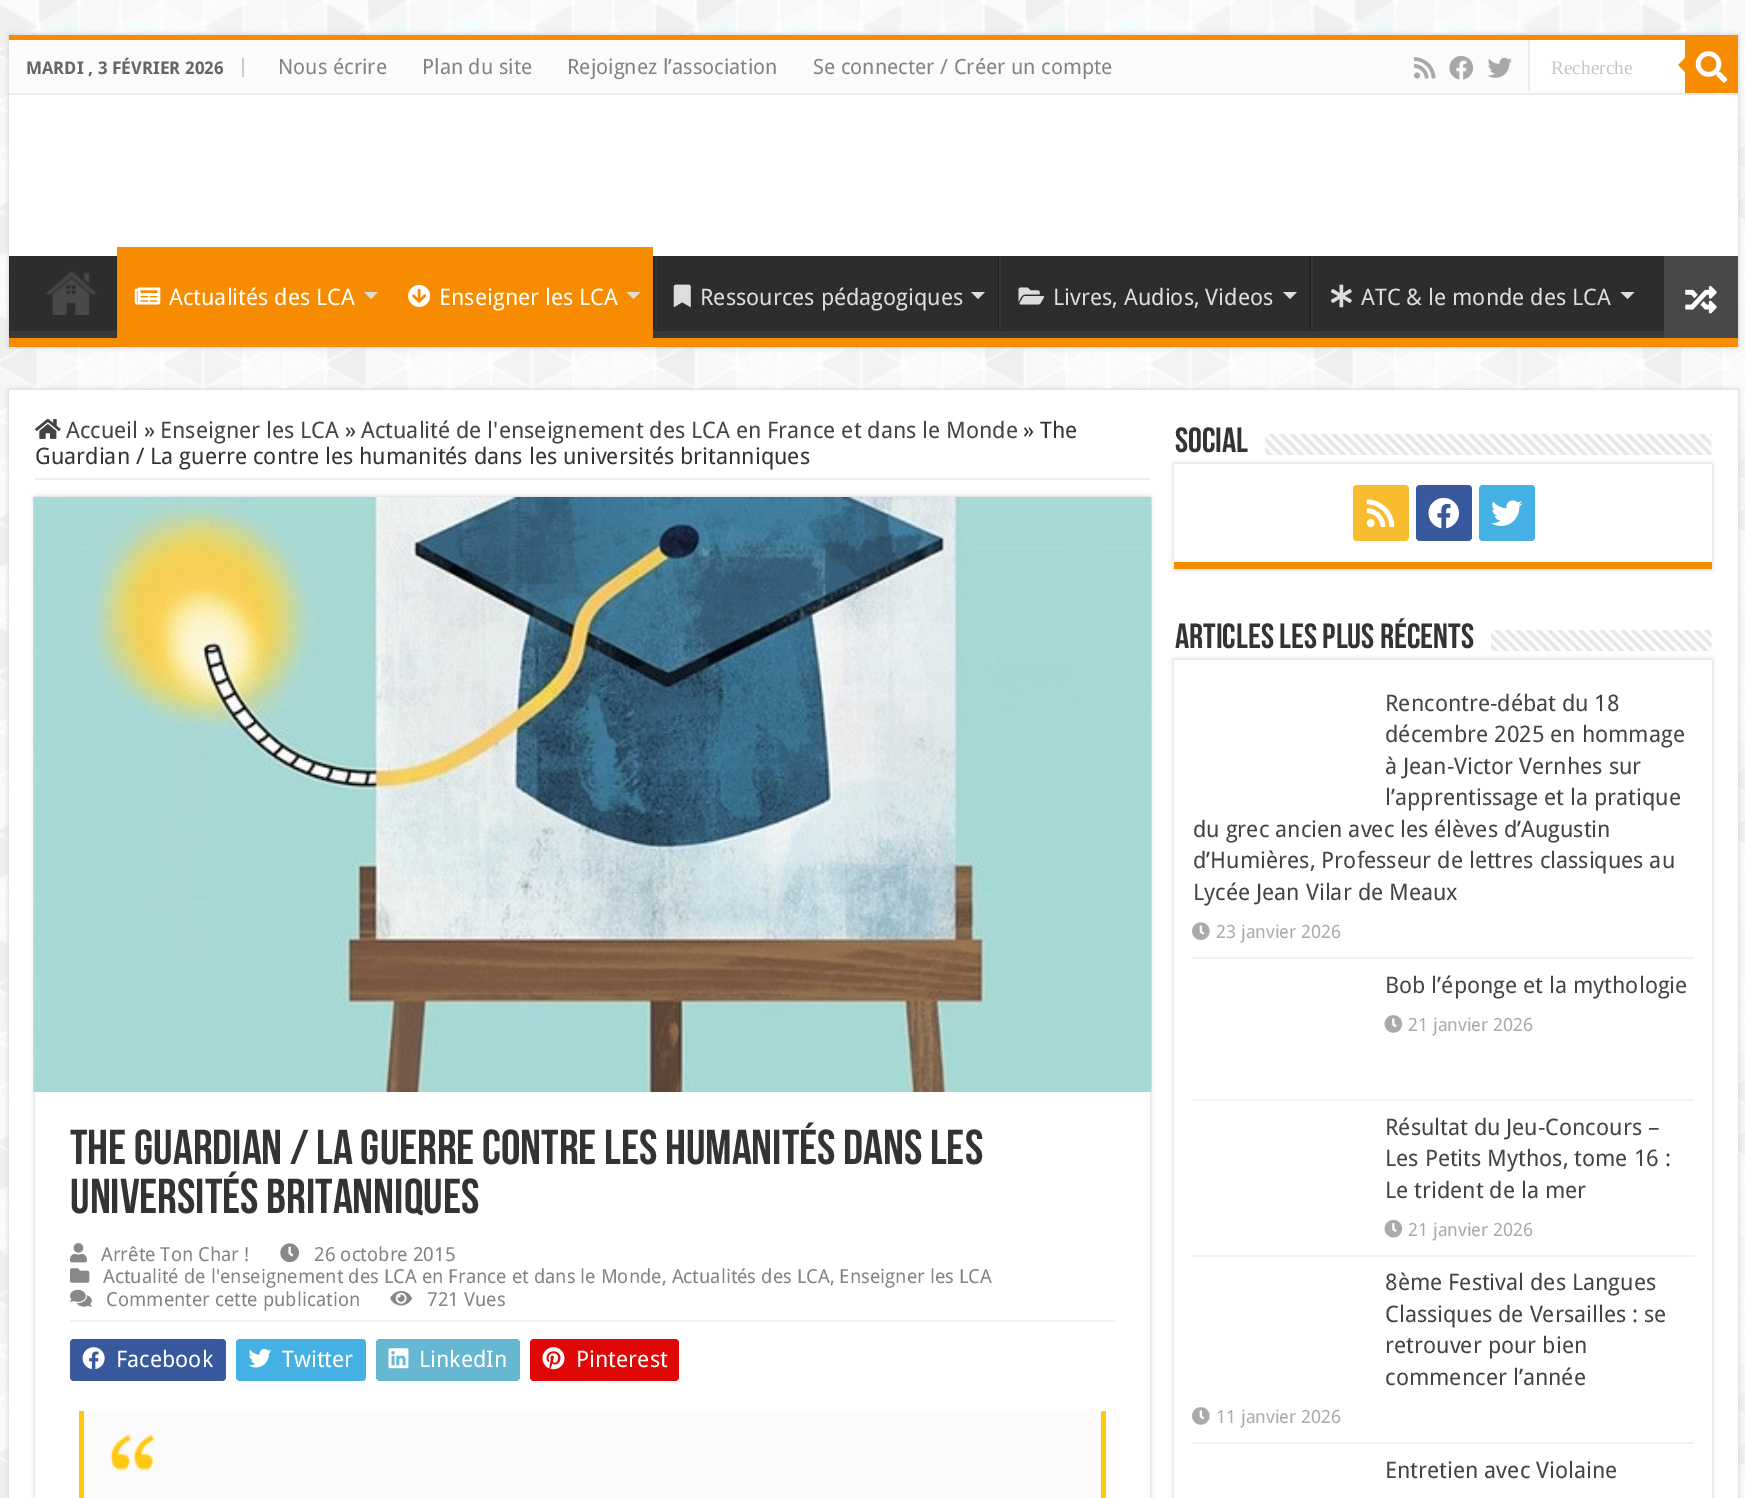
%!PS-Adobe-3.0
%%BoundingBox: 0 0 1745 1498
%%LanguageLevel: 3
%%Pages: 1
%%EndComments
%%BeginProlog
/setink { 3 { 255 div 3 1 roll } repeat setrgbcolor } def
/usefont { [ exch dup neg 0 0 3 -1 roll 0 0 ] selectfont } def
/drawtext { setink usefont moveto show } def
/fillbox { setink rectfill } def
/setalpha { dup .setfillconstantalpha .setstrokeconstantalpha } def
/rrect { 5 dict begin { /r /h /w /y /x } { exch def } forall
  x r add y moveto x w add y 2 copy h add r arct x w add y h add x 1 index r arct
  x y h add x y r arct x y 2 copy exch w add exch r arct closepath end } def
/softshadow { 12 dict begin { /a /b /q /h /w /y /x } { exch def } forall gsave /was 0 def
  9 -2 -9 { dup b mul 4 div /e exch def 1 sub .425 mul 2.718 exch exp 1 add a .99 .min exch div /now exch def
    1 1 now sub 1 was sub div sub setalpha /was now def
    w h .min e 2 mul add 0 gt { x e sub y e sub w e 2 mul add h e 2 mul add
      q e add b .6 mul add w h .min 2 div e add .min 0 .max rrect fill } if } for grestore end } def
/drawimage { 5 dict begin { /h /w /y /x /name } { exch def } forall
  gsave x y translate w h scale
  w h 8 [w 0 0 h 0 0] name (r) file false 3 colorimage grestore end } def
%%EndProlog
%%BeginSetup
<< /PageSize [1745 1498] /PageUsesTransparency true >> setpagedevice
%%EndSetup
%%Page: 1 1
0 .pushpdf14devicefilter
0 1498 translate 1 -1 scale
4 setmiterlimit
0 0 1745 1498 255 255 255 fillbox
(assets/img1.rgb) 0 0 1745 1498 drawimage
202 202 202 setink
9 35 1729 312 0 2.5 1 softshadow
9 95 1729 161 255 255 255 fillbox
9 35 1729 5 248 140 0 fillbox
9 40 1676 53 251 251 251 fillbox
9 93 1729 2 236 236 236 fillbox
242 58 2 19 204 204 204 fillbox
(MARDI , 3 FÉVRIER 2026) 26 74 /DroidSans-Bold 17.5 102 102 102 drawtext
(Nous écrire) 278 74 /DroidSans-Regular 21 131 131 131 drawtext
(Plan du site) 422 74 /DroidSans-Regular 21 131 131 131 drawtext
(Rejoignez l’association) 567 74 /DroidSans-Regular 21 131 131 131 drawtext
(Se connecter / Créer un compte) 813 74 /DroidSans-Regular 21 131 131 131 drawtext
(assets/img2.rgb) 1414 57 22 22 drawimage
(assets/img3.rgb) 1449 56 25 24 drawimage
(assets/img4.rgb) 1487 57 25 21 drawimage
1530 40 155 51 255 255 255 fillbox
1528 40 2 51 236 236 236 fillbox
(Recherche) 1551 74 /LiberationSerif-Regular 19.25 197 197 197 drawtext
1685 40 53 53 248 140 0 fillbox
(assets/img5.rgb) 1695 51 33 32 drawimage
1685 58 moveto 1685 72 lineto 1678 65 lineto closepath fill
9 256 1655 75 45 45 45 fillbox
gsave
9 256 1729 82 rectclip
57 57 57 setink
-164 82 moveto 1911 82 lineto 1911 511 lineto -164 511 lineto closepath 7 245 moveto 1736 245 lineto 1737 245 1738 246 1738 247 curveto 1738 329 lineto 1738 330 1737 331 1736 331 curveto 7 331 lineto 6 331 5 330 5 329 curveto 5 247 lineto 5 246 6 245 7 245 curveto closepath eofill
grestore
9 338 1729 9 248 140 0 fillbox
(assets/img6.rgb) 45 271 52 44 drawimage
117 247 536 91 248 140 0 fillbox
(assets/img7.rgb) 134 287 27 18 drawimage
(Actualités des LCA) 169 305 /DroidSans-Regular 22.75 255 255 255 drawtext
221 221 221 setink
364 292 moveto 378 292 lineto 371 299 lineto closepath fill
(assets/img8.rgb) 408 285 23 22 drawimage
(Enseigner les LCA) 439 305 /DroidSans-Regular 22.75 255 255 255 drawtext
221 221 221 setink
626.5 292 moveto 640.5 292 lineto 633.5 299 lineto closepath fill
653 256 2 73 34 34 34 fillbox
655 256 2 73 56 56 56 fillbox
(assets/img9.rgb) 673 284 18 24 drawimage
(Ressources pédagogiques) 700 305 /DroidSans-Regular 22.75 221 221 221 drawtext
971 292 moveto 985 292 lineto 978 299 lineto closepath fill
998 256 1 73 34 34 34 fillbox
999 256 2 73 56 56 56 fillbox
(assets/img10.rgb) 1018 287 27 18 drawimage
(Livres, Audios, Videos) 1053 305 /DroidSans-Regular 22.75 221 221 221 drawtext
1283 292 moveto 1297 292 lineto 1290 299 lineto closepath fill
1309 256 2 73 34 34 34 fillbox
1311 256 2 73 56 56 56 fillbox
(assets/img11.rgb) 1331 284 21 24 drawimage
(ATC & le monde des LCA) 1361 305 /DroidSans-Regular 22.75 221 221 221 drawtext
1620.5 292 moveto 1634.5 292 lineto 1627.5 299 lineto closepath fill
1664 256 74 82 73 73 73 fillbox
(assets/img12.rgb) 1685 285 32 29 drawimage
202 202 202 setink
9 390 1729 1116 0 2.5 1 softshadow
9 390 1729 1108 255 255 255 fillbox
35 478 1115 2 238 238 238 fillbox
(assets/img13.rgb) 35 419 26 20 drawimage
(Accueil) 66 438 /DroidSans-Regular 22.75 68 68 68 drawtext
(») 144 438 /DroidSans-Regular 22.75 51 51 51 drawtext
(Enseigner les LCA) 160 438 /DroidSans-Regular 22.75 68 68 68 drawtext
(») 345 438 /DroidSans-Regular 22.75 51 51 51 drawtext
(Actualité de l'enseignement des LCA en France et dans le Monde) 361 438 /DroidSans-Regular 22.75 68 68 68 drawtext
(») 1023 438 /DroidSans-Regular 22.75 51 51 51 drawtext
(The) 1040 438 /DroidSans-Regular 22.75 51 51 51 drawtext
(Guardian / La guerre contre les humanités dans les universités britanniques) 35 464 /DroidSans-Regular 22.75 51 51 51 drawtext
202 202 202 setink
35 497 1115 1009 0 2.5 1 softshadow
35 1092 1115 406 255 255 255 fillbox
(assets/img14.rgb) 33 497 1119 595 drawimage
(The Guardian / La guerre contre les humanités dans les) 70 1164 /BebasNeue-Bold 49 51 51 51 drawtext
(universités britanniques) 70 1213 /BebasNeue-Bold 49 51 51 51 drawtext
70 1320 1045 2 242 242 242 fillbox
(assets/img15.rgb) 70 1243 17 20 drawimage
(Arrête Ton Char !) 101 1261 /DroidSans-Regular 19.35 131 131 131 drawtext
(assets/img16.rgb) 280 1243 19 20 drawimage
(26 octobre 2015) 314 1261 /DroidSans-Regular 19.35 131 131 131 drawtext
(assets/img17.rgb) 70 1268 20 15 drawimage
(Actualité de l'enseignement des LCA en France et dans le Monde, Actualités des LCA, Enseigner les LCA) 103 1283 /DroidSans-Regular 19.35 131 131 131 drawtext
(assets/img18.rgb) 70 1289 22 18 drawimage
(Commenter cette publication) 106 1306 /DroidSans-Regular 19.35 131 131 131 drawtext
(assets/img19.rgb) 390 1291 22 15 drawimage
(721 Vues) 427 1306 /DroidSans-Regular 19.35 131 131 131 drawtext
57 89 159 setink
70 1339 156 42 4 rrect fill
(assets/img20.rgb) 82 1347 23 22 drawimage
(Facebook) 116 1367 /DroidSans-Regular 22.75 255 255 255 drawtext
69 176 227 setink
236 1339 130 42 4 rrect fill
(assets/img21.rgb) 248 1349 24 19 drawimage
(Twitter) 282 1367 /DroidSans-Regular 22.75 255 255 255 drawtext
101 183 210 setink
376 1339 144 42 4 rrect fill
(assets/img22.rgb) 388 1348 21 21 drawimage
(LinkedIn) 419 1367 /DroidSans-Regular 22.75 255 255 255 drawtext
224 7 7 setink
530 1339 149 42 4 rrect fill
(assets/img23.rgb) 542 1347 23 23 drawimage
(Pinterest) 576 1367 /DroidSans-Regular 22.75 255 255 255 drawtext
84 1411 1017 87 251 251 251 fillbox
(assets/img24.rgb) 110 1434 45 37 drawimage
1101 1411 5 87 255 199 16 fillbox
79 1411 5 87 255 199 16 fillbox
(Social) 1175 452 /BebasNeue-Bold 35 51 51 51 drawtext
(assets/img25.rgb) 1265 434 447 21 drawimage
202 202 202 setink
1174 464 538 105 0 2.5 1 softshadow
1174 464 538 98 255 255 255 fillbox
1174 562 538 7 248 140 0 fillbox
248 188 46 setink
1353 485 56 56 4 rrect fill
(assets/img26.rgb) 1366 499 29 28 drawimage
57 89 159 setink
1416 485 56 56 4 rrect fill
(assets/img27.rgb) 1428 497 31 32 drawimage
69 176 227 setink
1479 485 56 56 4 rrect fill
(assets/img28.rgb) 1491 500 32 26 drawimage
(Articles les plus récents) 1175 648 /BebasNeue-Bold 35 51 51 51 drawtext
(assets/img29.rgb) 1491 630 221 21 drawimage
202 202 202 setink
1174 660 538 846 0 2.5 1 softshadow
1174 660 538 838 255 255 255 fillbox
1192 957 502 2 242 242 242 fillbox
(Rencontre-débat du 18) 1385 711 /DroidSans-Regular 22.75 68 68 68 drawtext
(décembre 2025 en hommage) 1385 742 /DroidSans-Regular 22.75 68 68 68 drawtext
(à Jean-Victor Vernhes sur) 1385 774 /DroidSans-Regular 22.75 68 68 68 drawtext
(l’apprentissage et la pratique) 1385 805 /DroidSans-Regular 22.75 68 68 68 drawtext
(du grec ancien avec les élèves d’Augustin) 1193 837 /DroidSans-Regular 22.75 68 68 68 drawtext
(d’Humières, Professeur de lettres classiques au) 1193 868 /DroidSans-Regular 22.75 68 68 68 drawtext
(Lycée Jean Vilar de Meaux) 1193 900 /DroidSans-Regular 22.75 68 68 68 drawtext
(assets/img30.rgb) 1192 922 18 18 drawimage
(23 janvier 2026) 1216 938 /DroidSans-Regular 18.25 170 170 170 drawtext
1192 1099 502 2 242 242 242 fillbox
(Bob l’éponge et la mythologie) 1385 993 /DroidSans-Regular 22.75 68 68 68 drawtext
(assets/img31.rgb) 1384 1015 19 18 drawimage
(21 janvier 2026) 1408 1031 /DroidSans-Regular 18.25 170 170 170 drawtext
1192 1255 502 2 242 242 242 fillbox
(Résultat du Jeu-Concours –) 1385 1135 /DroidSans-Regular 22.75 68 68 68 drawtext
(Les Petits Mythos, tome 16 :) 1385 1166 /DroidSans-Regular 22.75 68 68 68 drawtext
(Le trident de la mer) 1385 1198 /DroidSans-Regular 22.75 68 68 68 drawtext
(assets/img32.rgb) 1384 1219 19 19 drawimage
(21 janvier 2026) 1408 1236 /DroidSans-Regular 18.25 170 170 170 drawtext
1192 1442 502 2 242 242 242 fillbox
(8ème Festival des Langues) 1385 1290 /DroidSans-Regular 22.75 68 68 68 drawtext
(Classiques de Versailles : se) 1385 1322 /DroidSans-Regular 22.75 68 68 68 drawtext
(retrouver pour bien) 1385 1353 /DroidSans-Regular 22.75 68 68 68 drawtext
(commencer l’année) 1385 1385 /DroidSans-Regular 22.75 68 68 68 drawtext
(assets/img33.rgb) 1192 1407 18 18 drawimage
(11 janvier 2026) 1216 1423 /DroidSans-Regular 18.25 170 170 170 drawtext
(Entretien avec Violaine) 1385 1478 /DroidSans-Regular 22.75 68 68 68 drawtext
.poppdf14devicefilter showpage
%%EOF
